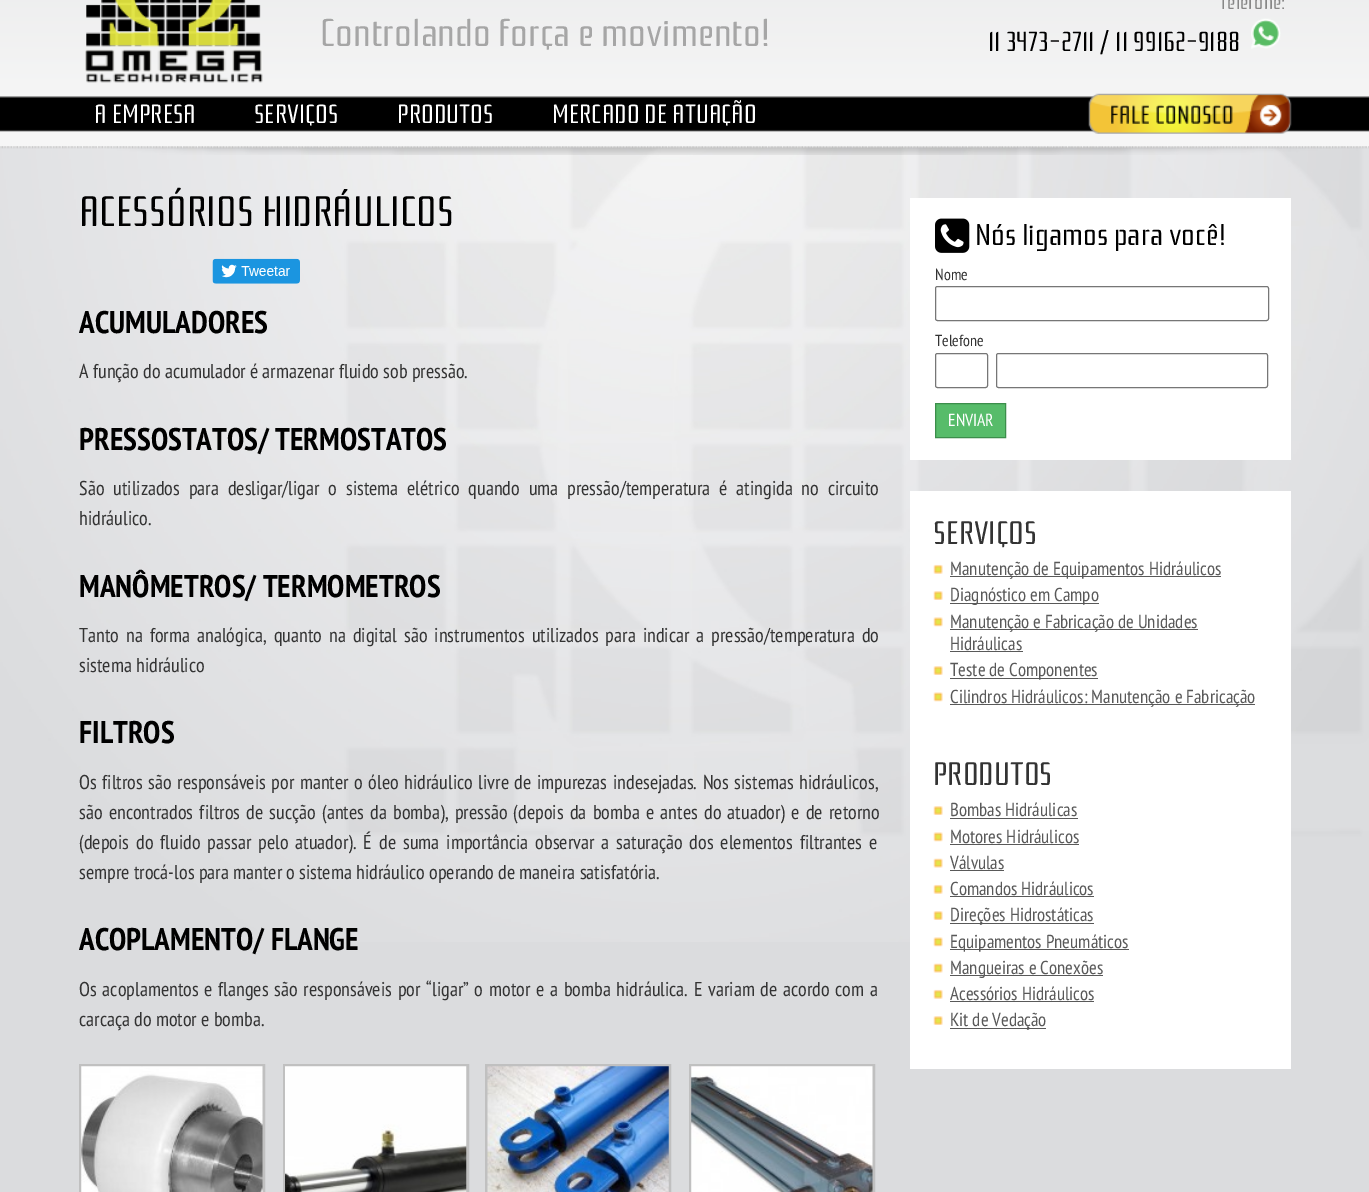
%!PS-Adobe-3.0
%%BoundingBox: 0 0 1369 1192
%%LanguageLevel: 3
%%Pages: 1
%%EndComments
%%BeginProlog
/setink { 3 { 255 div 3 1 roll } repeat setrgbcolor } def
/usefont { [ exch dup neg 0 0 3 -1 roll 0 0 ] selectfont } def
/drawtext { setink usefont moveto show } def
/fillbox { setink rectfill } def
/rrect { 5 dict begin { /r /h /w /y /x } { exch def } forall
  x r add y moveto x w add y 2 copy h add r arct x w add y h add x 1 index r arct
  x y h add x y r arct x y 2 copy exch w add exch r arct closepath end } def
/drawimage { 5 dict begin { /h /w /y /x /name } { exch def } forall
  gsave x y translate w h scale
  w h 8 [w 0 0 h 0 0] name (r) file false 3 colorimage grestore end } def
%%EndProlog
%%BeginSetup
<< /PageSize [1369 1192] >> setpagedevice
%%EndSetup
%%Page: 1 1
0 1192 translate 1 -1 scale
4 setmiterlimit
0 0 1369 1192 219 220 222 fillbox
(assets/img1.rgb) 0 146 1369 796 drawimage
(assets/img2.rgb) 0 0 1369 155 drawimage
(assets/img3.rgb) 85 0 178 83 drawimage
(Controlando força e movimento!) 320 46 /Rationale-Regular 38.75 166 166 166 drawtext
(Telefone:) 1219 9 /Rationale-Regular 20 135 135 135 drawtext
(11 3473-2711 / 11 99162-9188) 988 51 /Rationale-Regular 27.5 0 0 0 drawtext
(assets/img4.rgb) 1251 18 30 31 drawimage
(A EMPRESA) 94 123 /Rationale-Regular 26.25 255 255 255 drawtext
(SERVIÇOS) 254 123 /Rationale-Regular 26.25 255 255 255 drawtext
(PRODUTOS) 397 123 /Rationale-Regular 26.25 255 255 255 drawtext
(MERCADO DE ATUAÇÃO) 552 123 /Rationale-Regular 26.25 255 255 255 drawtext
(assets/img5.rgb) 1088 93 204 41 drawimage
(ACESSÓRIOS HIDRÁULICOS) 79 226 /Rationale-Regular 42.5 0 0 0 drawtext
(assets/img6.rgb) 212 258 88 26 drawimage
(ACUMULADORES) 79 333 /PTSansNarrow-Bold 31.25 0 0 0 drawtext
(A função do acumulador é armazenar fluido sob pressão.) 79 378 /PTSansNarrow-Regular 20 51 51 51 drawtext
(PRESSOSTATOS/ TERMOSTATOS) 79 450 /PTSansNarrow-Bold 31.25 0 0 0 drawtext
/PTSansNarrow-Regular 20 usefont
51 51 51 setink
79 495 moveto 4.6 0 32 (São utilizados para desligar/ligar o sistema elétrico quando uma pressão/temperatura é atingida no circuito) widthshow
(hidráulico.) 79 525 /PTSansNarrow-Regular 20 51 51 51 drawtext
(MANÔMETROS/ TERMOMETROS) 79 597 /PTSansNarrow-Bold 31.25 0 0 0 drawtext
/PTSansNarrow-Regular 20 usefont
51 51 51 setink
79 642 moveto 2.75 0 32 (Tanto na forma analógica, quanto na digital são instrumentos utilizados para indicar a pressão/temperatura do) widthshow
(sistema hidráulico) 79 672 /PTSansNarrow-Regular 20 51 51 51 drawtext
(FILTROS) 79 743 /PTSansNarrow-Bold 31.25 0 0 0 drawtext
/PTSansNarrow-Regular 20 usefont
51 51 51 setink
79 789 moveto 1.3 0 32 (Os filtros são responsáveis por manter o óleo hidráulico livre de impurezas indesejadas. Nos sistemas hidráulicos,) widthshow
79 819 moveto 2 0 32 (são encontrados filtros de sucção \(antes da bomba\), pressão \(depois da bomba e antes do atuador\) e de retorno) widthshow
79 849 moveto 2.75 0 32 (\(depois do fluido passar pelo atuador\). É de suma importância observar a saturação dos elementos filtrantes e) widthshow
(sempre trocá-los para manter o sistema hidráulico operando de maneira satisfatória.) 79 879 /PTSansNarrow-Regular 20 51 51 51 drawtext
(ACOPLAMENTO/ FLANGE) 79 950 /PTSansNarrow-Bold 31.25 0 0 0 drawtext
/PTSansNarrow-Regular 20 usefont
51 51 51 setink
79 996 moveto 1.5 0 32 (Os acoplamentos e flanges são responsáveis por “ligar” o motor e a bomba hidráulica. E variam de acordo com a) widthshow
(carcaça do motor e bomba.) 79 1026 /PTSansNarrow-Regular 20 51 51 51 drawtext
192 192 192 setink
3 setlinewidth
80.5 1065.5 183 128 rectstroke
284.5 1065.5 183 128 rectstroke
486.5 1065.5 183 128 rectstroke
690.5 1065.5 183 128 rectstroke
(assets/img7.rgb) 81 1066 182 126 drawimage
(assets/img8.rgb) 285 1066 182 126 drawimage
(assets/img9.rgb) 487 1066 182 126 drawimage
(assets/img10.rgb) 691 1066 182 126 drawimage
910 198 381 262 255 255 255 fillbox
(assets/img11.rgb) 935 218 35 35 drawimage
(Nós ligamos para você!) 975 245 /Rationale-Regular 30 0 0 0 drawtext
(Nome) 935 280 /PTSansNarrow-Regular 16 51 51 51 drawtext
118 118 118 setink
1 setlinewidth
935.5 286.5 333 34 2 rrect stroke
(Telefone) 935 346 /PTSansNarrow-Regular 16 51 51 51 drawtext
118 118 118 setink
935.5 353.5 52 34 2 rrect stroke
996.5 353.5 271 34 2 rrect stroke
87 188 106 setink
935.5 403.5 moveto 1005.5 403.5 lineto 1005.5 437.5 lineto 935.5 437.5 lineto closepath gsave fill grestore
60 142 75 setink
stroke
(ENVIAR) 948 426 /PTSansNarrow-Regular 17.5 255 255 255 drawtext
910 491 381 578 255 255 255 fillbox
(SERVIÇOS) 933 544 /Rationale-Regular 32.5 51 51 51 drawtext
(assets/img12.rgb) 933 564 10 10 drawimage
950 576 271 1 89 89 89 fillbox
(Manutenção de Equipamentos Hidráulicos) 950 575 /PTSansNarrow-Regular 18.75 89 89 89 drawtext
(assets/img13.rgb) 933 591 10 9 drawimage
950 603 149 1 89 89 89 fillbox
(Diagnóstico em Campo) 950 601 /PTSansNarrow-Regular 18.75 89 89 89 drawtext
(assets/img14.rgb) 933 617 10 10 drawimage
950 629 248 1 89 89 89 fillbox
(Manutenção e Fabricação de Unidades) 950 628 /PTSansNarrow-Regular 18.75 89 89 89 drawtext
(Hidráulicas) 950 650 /PTSansNarrow-Regular 18.75 89 89 89 drawtext
950 651 73 1 89 89 89 fillbox
(assets/img13.rgb) 933 666 10 9 drawimage
950 678 148 1 89 89 89 fillbox
(Teste de Componentes) 950 676 /PTSansNarrow-Regular 18.75 89 89 89 drawtext
(assets/img15.rgb) 933 692 10 10 drawimage
950 704 305 1 89 89 89 fillbox
(Cilindros Hidráulicos: Manutenção e Fabricação) 950 703 /PTSansNarrow-Regular 18.75 89 89 89 drawtext
(PRODUTOS) 933 785 /Rationale-Regular 32.5 51 51 51 drawtext
(assets/img13.rgb) 933 806 10 9 drawimage
(Bombas Hidráulicas) 950 816 /PTSansNarrow-Regular 18.75 89 89 89 drawtext
950 818 128 1 89 89 89 fillbox
(assets/img14.rgb) 933 832 10 10 drawimage
(Motores Hidráulicos) 950 843 /PTSansNarrow-Regular 18.75 89 89 89 drawtext
950 844 129 1 89 89 89 fillbox
(assets/img16.rgb) 933 858 10 10 drawimage
(Válvulas) 950 869 /PTSansNarrow-Regular 18.75 89 89 89 drawtext
950 870 54 1 89 89 89 fillbox
(assets/img12.rgb) 933 884 10 10 drawimage
(Comandos Hidráulicos) 950 895 /PTSansNarrow-Regular 18.75 89 89 89 drawtext
950 896 144 1 89 89 89 fillbox
(assets/img13.rgb) 933 911 10 9 drawimage
950 923 144 1 89 89 89 fillbox
(Direções Hidrostáticas) 950 921 /PTSansNarrow-Regular 18.75 89 89 89 drawtext
(assets/img14.rgb) 933 937 10 10 drawimage
950 949 179 1 89 89 89 fillbox
(Equipamentos Pneumáticos) 950 948 /PTSansNarrow-Regular 18.75 89 89 89 drawtext
(assets/img16.rgb) 933 963 10 10 drawimage
950 975 153 1 89 89 89 fillbox
(Mangueiras e Conexões) 950 974 /PTSansNarrow-Regular 18.75 89 89 89 drawtext
(assets/img12.rgb) 933 989 10 10 drawimage
(Acessórios Hidráulicos) 950 1000 /PTSansNarrow-Regular 18.75 89 89 89 drawtext
950 1001 144 1 89 89 89 fillbox
(assets/img13.rgb) 933 1016 10 9 drawimage
950 1028 96 1 89 89 89 fillbox
(Kit de Vedação) 950 1026 /PTSansNarrow-Regular 18.75 89 89 89 drawtext
showpage
%%EOF
